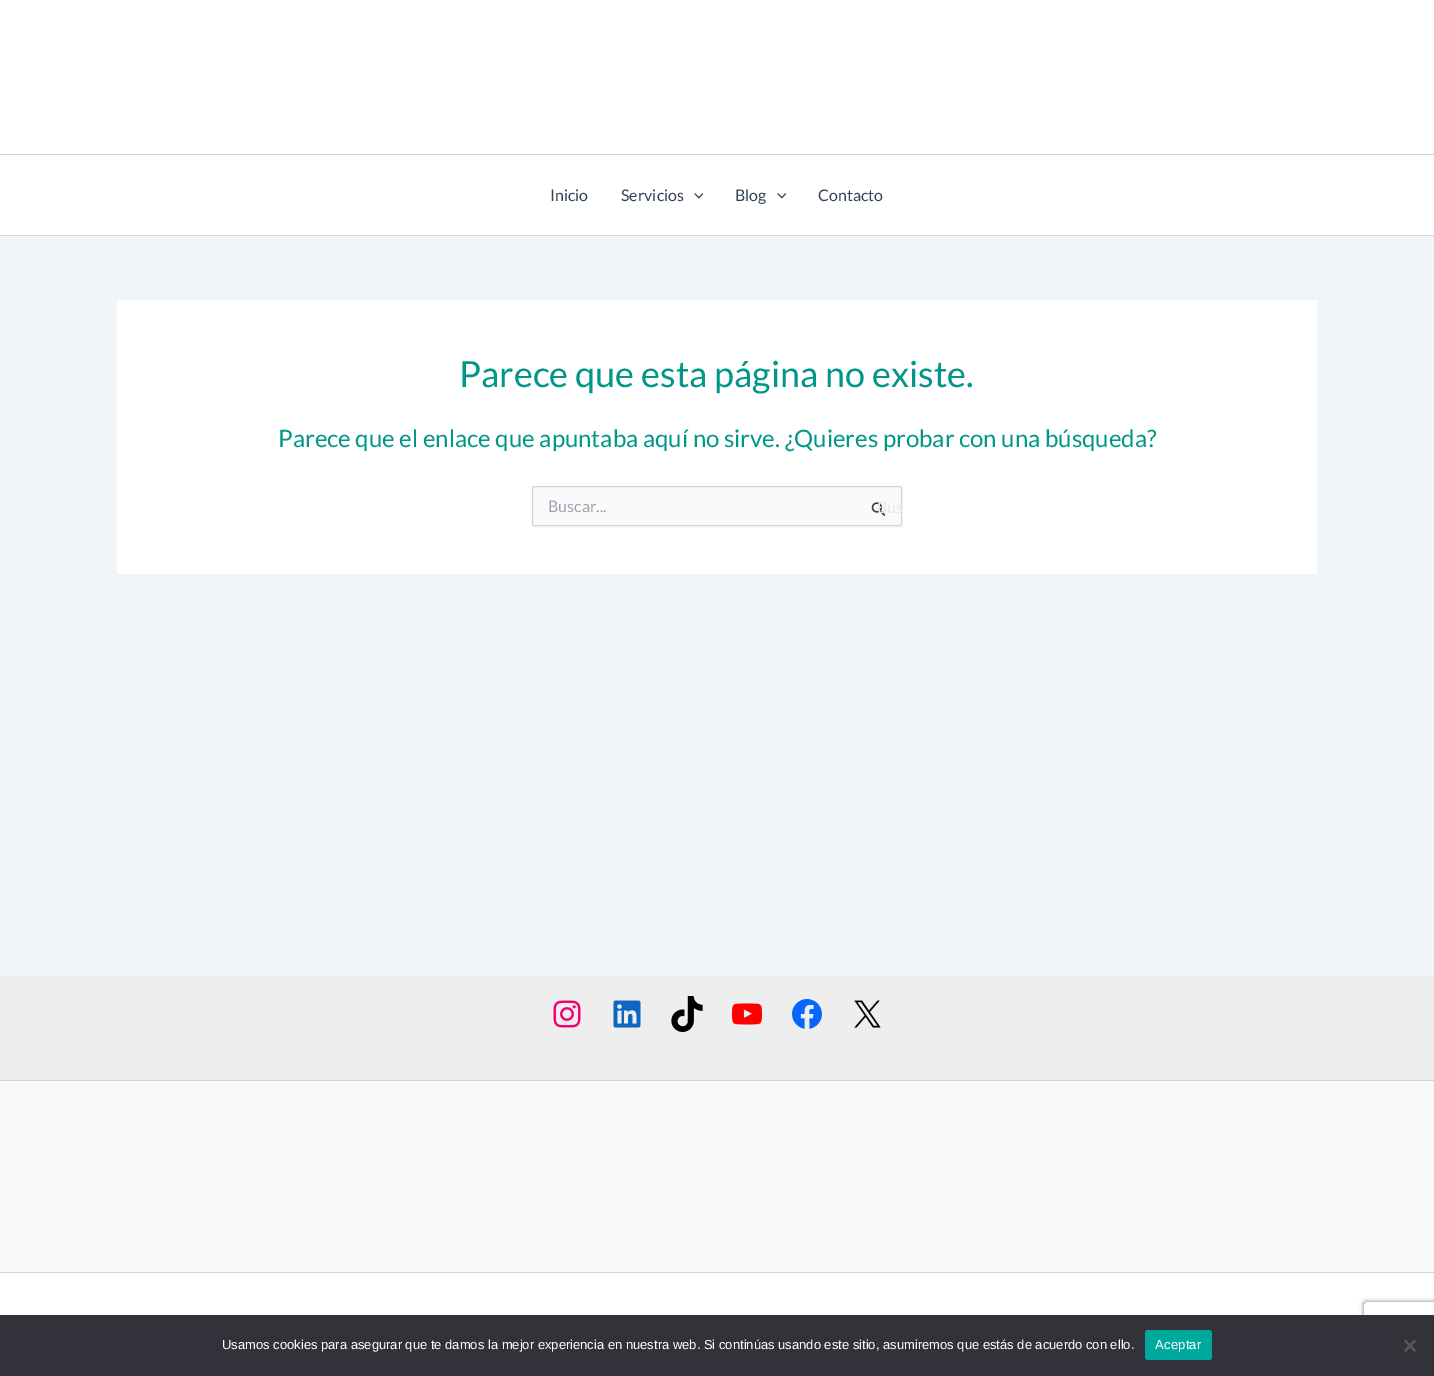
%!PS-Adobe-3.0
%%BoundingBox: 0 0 1434 1376
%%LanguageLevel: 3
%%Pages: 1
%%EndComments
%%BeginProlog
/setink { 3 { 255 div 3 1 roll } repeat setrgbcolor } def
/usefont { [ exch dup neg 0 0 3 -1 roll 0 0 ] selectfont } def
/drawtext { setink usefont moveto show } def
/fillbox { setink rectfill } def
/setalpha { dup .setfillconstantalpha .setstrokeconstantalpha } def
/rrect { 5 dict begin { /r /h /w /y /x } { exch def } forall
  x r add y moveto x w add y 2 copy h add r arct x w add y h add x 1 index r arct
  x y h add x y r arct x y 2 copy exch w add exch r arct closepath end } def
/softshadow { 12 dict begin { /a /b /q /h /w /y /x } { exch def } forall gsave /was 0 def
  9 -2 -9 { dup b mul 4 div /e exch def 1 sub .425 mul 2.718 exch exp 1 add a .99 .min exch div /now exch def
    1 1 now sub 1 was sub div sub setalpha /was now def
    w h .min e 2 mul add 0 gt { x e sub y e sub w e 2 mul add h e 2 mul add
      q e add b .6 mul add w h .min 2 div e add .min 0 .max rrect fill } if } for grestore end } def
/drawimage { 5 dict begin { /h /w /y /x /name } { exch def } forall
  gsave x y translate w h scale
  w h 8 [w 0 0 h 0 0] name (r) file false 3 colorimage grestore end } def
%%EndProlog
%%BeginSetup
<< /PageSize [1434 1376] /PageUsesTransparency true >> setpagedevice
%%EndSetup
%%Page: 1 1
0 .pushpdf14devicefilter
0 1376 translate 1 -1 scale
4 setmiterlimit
0 0 1434 1376 240 245 250 fillbox
0 0 1434 154 255 255 255 fillbox
0 154 1434 1 209 213 219 fillbox
0 155 1434 80 255 255 255 fillbox
0 235 1434 1 209 213 219 fillbox
(Inicio) 550 201 /Lato-Regular 16 51 65 85 drawtext
(Servicios) 621 201 /Lato-Regular 16 51 65 85 drawtext
(assets/img1.rgb) 694 193 9 6 drawimage
(Blog) 735 201 /Lato-Regular 16 51 65 85 drawtext
(assets/img1.rgb) 777 193 9 6 drawimage
(Contacto) 818 201 /Lato-Regular 16 51 65 85 drawtext
117 300 1200 274 255 255 255 fillbox
(Parece que esta página no existe.) 459 387 /Lato-Regular 36 0 150 136 drawtext
(Parece que el enlace que apuntaba aquí no sirve. ¿Quieres probar con una búsqueda?) 278 447 /Lato-Regular 24 0 150 136 drawtext
0 0 0 setink
532 487 370 40 2 1 0.05 softshadow
250 250 250 setink
532.5 486.5 369 39 1.5 rrect gsave fill grestore
209 213 219 setink
stroke
(Buscar...) 548 512 /Lato-Regular 16 156 163 175 drawtext
(assets/img2.rgb) 871 502 14 15 drawimage
gsave
857 486 45 42 2 rrect clip newpath
(Bus) 877 513 /Lato-Regular 16 231 231 231 drawtext
grestore
0 976 1434 104 238 238 238 fillbox
(assets/img3.rgb) 553 1000 28 28 drawimage
(assets/img4.rgb) 613 1000 28 28 drawimage
(assets/img5.rgb) 671 996 32 36 drawimage
(assets/img6.rgb) 732 1003 30 22 drawimage
(assets/img7.rgb) 792 999 30 30 drawimage
(assets/img8.rgb) 854 1000 27 28 drawimage
0 1081 1434 191 249 249 249 fillbox
0 1080 1434 1 209 213 219 fillbox
0 1273 1434 42 255 255 255 fillbox
0 1272 1434 1 209 213 219 fillbox
gsave
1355 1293 moveto 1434 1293 lineto 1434 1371 lineto 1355 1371 lineto closepath 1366 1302 moveto 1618 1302 lineto 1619 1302 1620 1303 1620 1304 curveto 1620 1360 lineto 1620 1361 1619 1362 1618 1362 curveto 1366 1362 lineto 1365 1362 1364 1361 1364 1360 curveto 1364 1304 lineto 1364 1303 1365 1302 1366 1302 curveto closepath eoclip newpath
128 128 128 setink
1364 1302 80 60 2 2.5 1 softshadow
grestore
0 1315 1434 61 50 50 58 fillbox
(Usamos cookies para asegurar que te damos la mejor experiencia en nuestra web. Si continúas usando este sitio, asumiremos que estás de acuerdo con ello.) 222 1349 /LiberationSans-Regular 13 255 255 255 drawtext
0 169 157 setink
1145 1330 67 30 3 rrect fill
255 255 255 setink
1155 1349 moveto 0.25 0 (Aceptar) ashow
89 89 93 setink
1414.5 1339.5 moveto 1416 1341 lineto 1405.5 1352 lineto 1404 1350.5 lineto closepath fill
1404 1341 moveto 1405.5 1339.5 lineto 1416 1350.5 lineto 1414.5 1352 lineto closepath fill
.poppdf14devicefilter showpage
%%EOF
